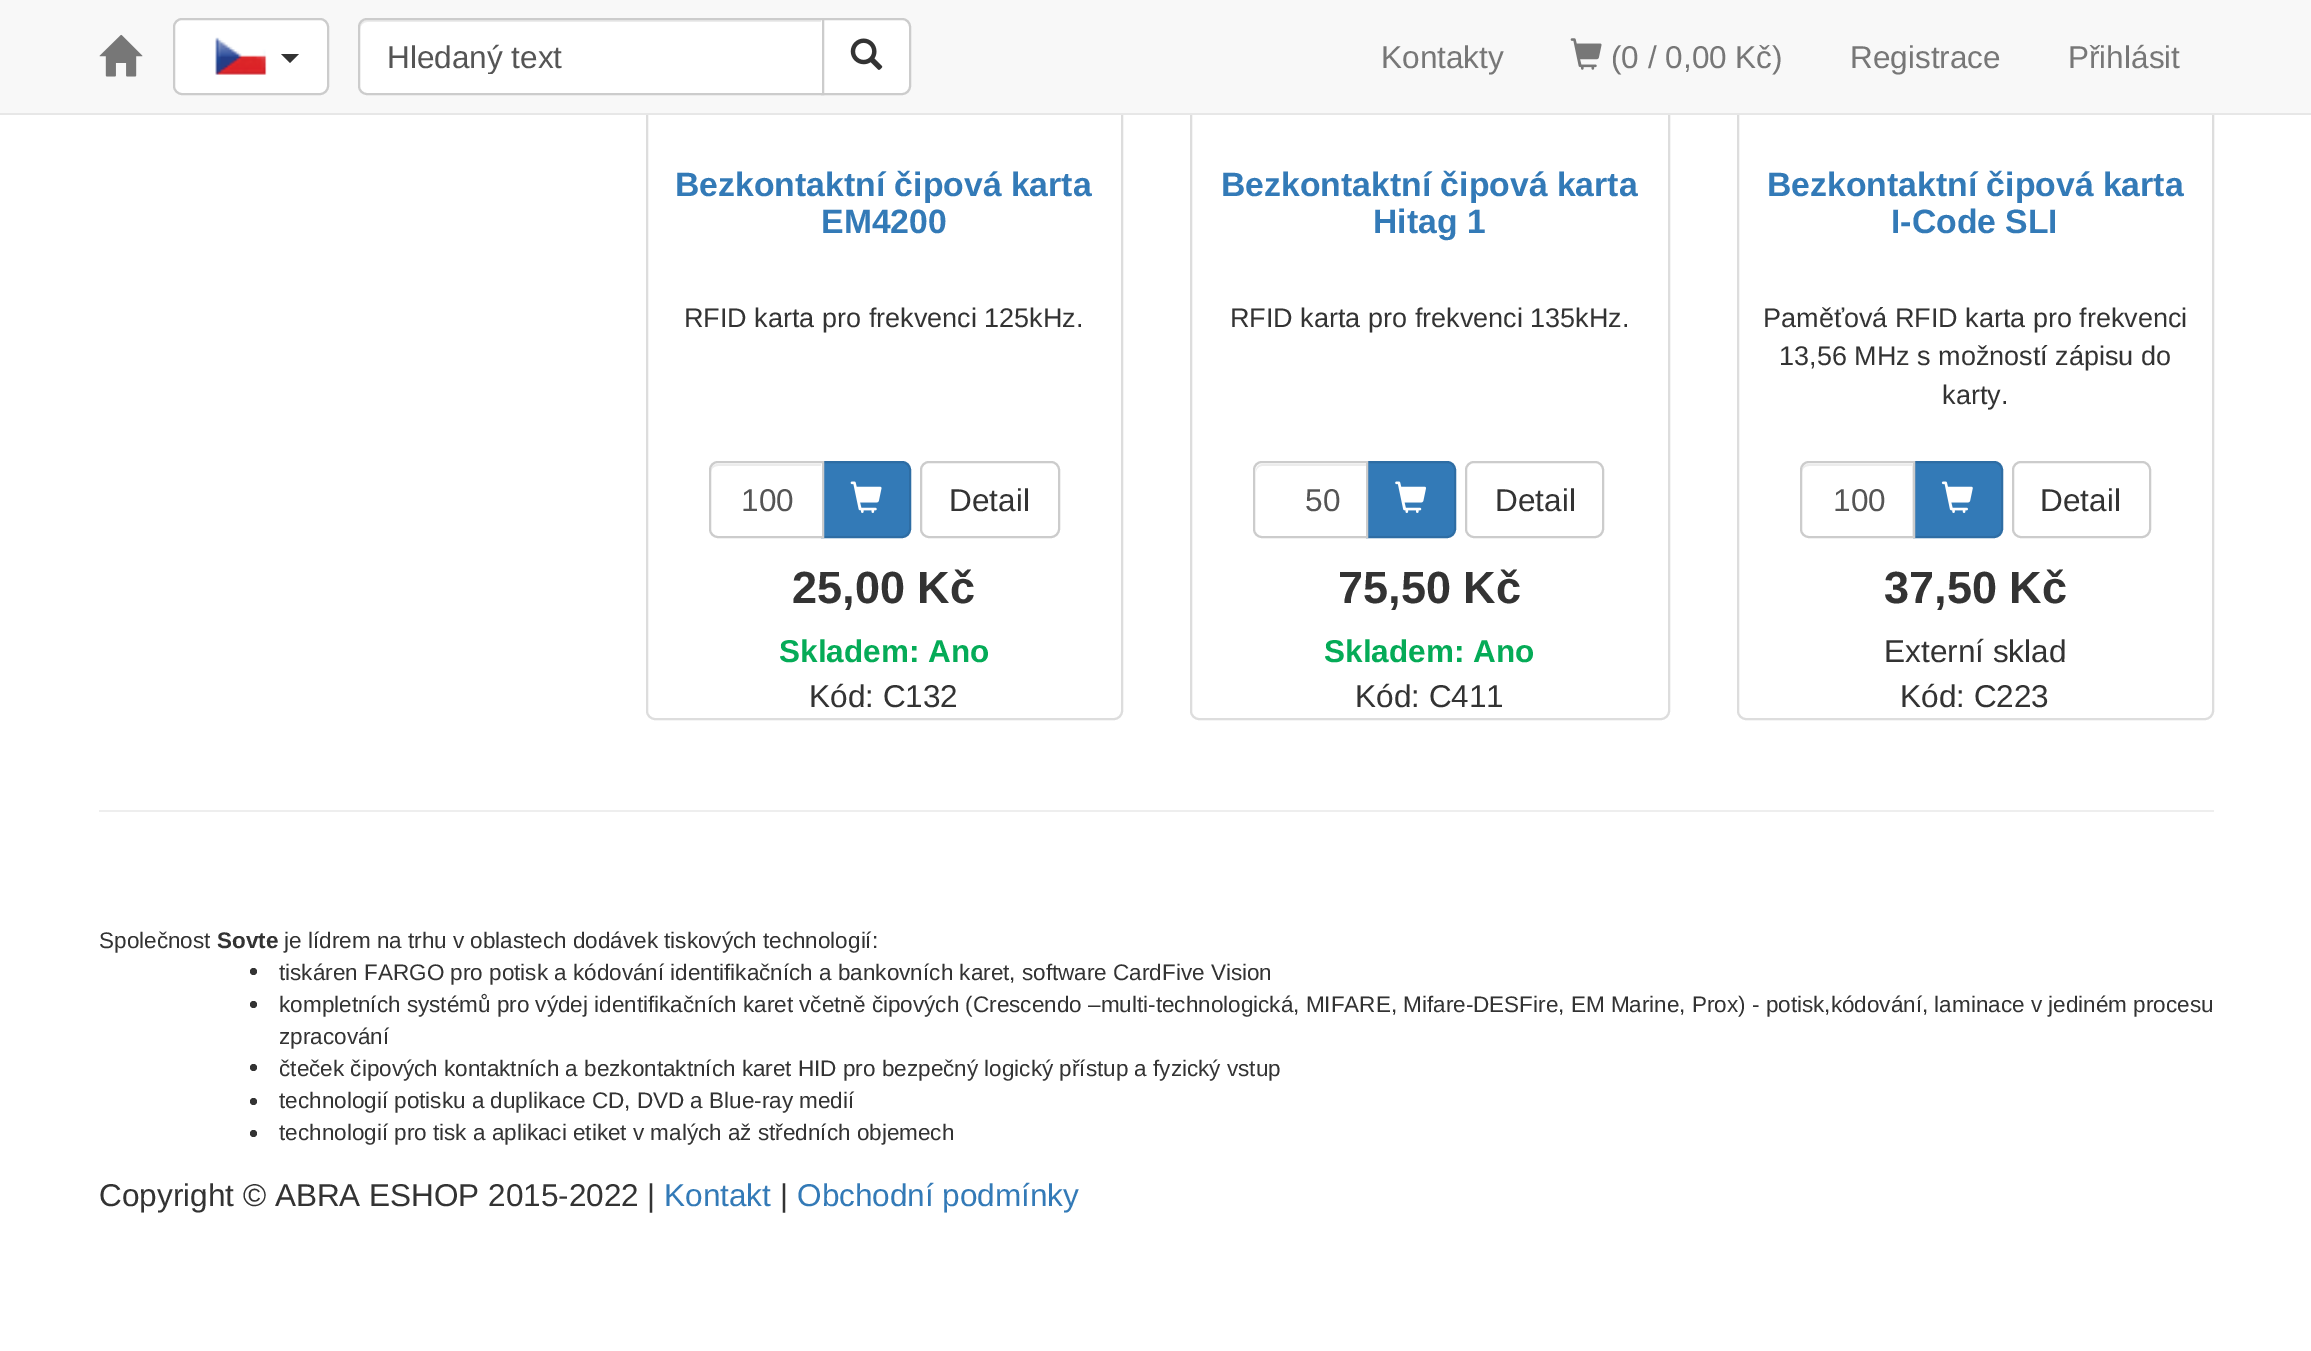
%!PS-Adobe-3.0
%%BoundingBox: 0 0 2311 1351
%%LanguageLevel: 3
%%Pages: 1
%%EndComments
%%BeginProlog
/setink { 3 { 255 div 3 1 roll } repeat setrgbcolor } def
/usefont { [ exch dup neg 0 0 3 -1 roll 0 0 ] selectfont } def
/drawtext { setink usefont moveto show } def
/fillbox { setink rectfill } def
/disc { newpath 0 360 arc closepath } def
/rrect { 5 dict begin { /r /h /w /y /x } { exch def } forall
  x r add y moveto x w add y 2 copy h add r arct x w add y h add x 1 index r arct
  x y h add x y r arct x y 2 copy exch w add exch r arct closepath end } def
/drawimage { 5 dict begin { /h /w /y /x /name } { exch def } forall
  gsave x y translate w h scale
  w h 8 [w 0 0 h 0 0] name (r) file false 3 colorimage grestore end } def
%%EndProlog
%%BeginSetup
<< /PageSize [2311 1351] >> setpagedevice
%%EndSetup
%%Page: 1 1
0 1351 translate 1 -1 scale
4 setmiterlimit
0 0 2311 1351 255 255 255 fillbox
221 221 221 setink
2 setlinewidth
647 -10 475 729 8 rrect stroke
1191 -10 478 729 8 rrect stroke
1738 -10 475 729 8 rrect stroke
0 0 2311 113 248 248 248 fillbox
0 113 2311 2 231 231 231 fillbox
(assets/img1.rgb) 99 34 44 43 drawimage
255 255 255 setink
174 19 154 75 8 rrect gsave fill grestore
204 204 204 setink
stroke
(assets/img2.rgb) 215 37 52 38 drawimage
51 51 51 setink
281 54 moveto 299 54 lineto 290 63 lineto closepath fill
255 255 255 setink
822 19 moveto 902 19 lineto 906.5 19 910 22.5 910 27 curveto 910 86 lineto 910 90.5 906.5 94 902 94 curveto 822 94 lineto closepath gsave fill grestore
204 204 204 setink
stroke
255 255 255 setink
367 18 moveto 824 18 lineto 824 95 lineto 367 95 lineto 362 95 358 91 358 86 curveto 358 27 lineto 358 22 362 18 367 18 curveto closepath fill
236 236 236 setink
367 22 moveto 821 22 lineto 821 20 lineto 367 20 lineto 363 20 360 23 360 27 curveto 360 29 lineto 360 26 363 22 367 22 curveto closepath fill
204 204 204 setink
367 19 moveto 823 19 lineto 823 94 lineto 367 94 lineto 362.5 94 359 90.5 359 86 curveto 359 27 lineto 359 22.5 362.5 19 367 19 curveto closepath stroke
gsave
387 38 398 36 rectclip
(Hledaný text) 387 68 /LiberationSans-Regular 31.5 85 85 85 drawtext
grestore
(assets/img3.rgb) 850 38 33 32 drawimage
(Kontakty) 1381 68 /LiberationSans-Regular 31.5 119 119 119 drawtext
(assets/img4.rgb) 1570 38 32 32 drawimage
(\(0 / 0,00 Kč\)) 1611 68 /LiberationSans-Regular 31.5 119 119 119 drawtext
(Registrace) 1850 68 /LiberationSans-Regular 31.5 119 119 119 drawtext
(Přihlásit) 2068 68 /LiberationSans-Regular 31.5 119 119 119 drawtext
(Bezkontaktní čipová karta) 675 196 /LiberationSans-Bold 33.75 51 122 183 drawtext
(EM4200) 821 233 /LiberationSans-Bold 33.75 51 122 183 drawtext
(RFID karta pro frekvenci 125kHz.) 684 327 /LiberationSans-Regular 27 51 51 51 drawtext
51 122 183 setink
822 462 moveto 902 462 lineto 906.5 462 910 465.5 910 470 curveto 910 529 lineto 910 533.5 906.5 537 902 537 curveto 822 537 lineto closepath gsave fill grestore
46 109 164 setink
stroke
255 255 255 setink
718 461 moveto 824 461 lineto 824 538 lineto 718 538 lineto 713 538 709 534 709 529 curveto 709 470 lineto 709 465 713 461 718 461 curveto closepath fill
236 236 236 setink
718 466 moveto 821 466 lineto 821 464 lineto 718 464 lineto 714 464 711 467 711 471 curveto 711 472 lineto 711 469 714 466 718 466 curveto closepath fill
204 204 204 setink
718 462 moveto 823 462 lineto 823 537 lineto 718 537 lineto 713.5 537 710 533.5 710 529 curveto 710 470 lineto 710 465.5 713.5 462 718 462 curveto closepath stroke
(100) 741 511 /LiberationSans-Regular 31.5 85 85 85 drawtext
(assets/img5.rgb) 850 481 32 32 drawimage
204 204 204 setink
921 462 138 75 8 rrect stroke
(Detail) 949 511 /LiberationSans-Regular 31.5 51 51 51 drawtext
(25,00 Kč) 792 603 /LiberationSans-Bold 45 51 51 51 drawtext
(Skladem: Ano) 779 662 /LiberationSans-Bold 31.5 5 171 87 drawtext
(Kód: C132) 809 707 /LiberationSans-Regular 31.5 51 51 51 drawtext
(Bezkontaktní čipová karta) 1221 196 /LiberationSans-Bold 33.75 51 122 183 drawtext
(Hitag 1) 1373 233 /LiberationSans-Bold 33.75 51 122 183 drawtext
(RFID karta pro frekvenci 135kHz.) 1230 327 /LiberationSans-Regular 27 51 51 51 drawtext
51 122 183 setink
1367 462 moveto 1447 462 lineto 1451.5 462 1455 465.5 1455 470 curveto 1455 529 lineto 1455 533.5 1451.5 537 1447 537 curveto 1367 537 lineto closepath gsave fill grestore
46 109 164 setink
stroke
255 255 255 setink
1262 461 moveto 1368 461 lineto 1368 538 lineto 1262 538 lineto 1257 538 1253 534 1253 529 curveto 1253 470 lineto 1253 465 1257 461 1262 461 curveto closepath fill
236 236 236 setink
1262 466 moveto 1366 466 lineto 1366 464 lineto 1263 464 lineto 1259 464 1256 467 1256 471 curveto 1256 472 lineto 1256 469 1259 466 1262 466 curveto closepath fill
204 204 204 setink
1262 462 moveto 1367 462 lineto 1367 537 lineto 1262 537 lineto 1257.5 537 1254 533.5 1254 529 curveto 1254 470 lineto 1254 465.5 1257.5 462 1262 462 curveto closepath stroke
(50) 1305 511 /LiberationSans-Regular 31.5 85 85 85 drawtext
(assets/img6.rgb) 1395 481 31 32 drawimage
204 204 204 setink
1466 462 137 75 8 rrect stroke
(Detail) 1495 511 /LiberationSans-Regular 31.5 51 51 51 drawtext
(75,50 Kč) 1338 603 /LiberationSans-Bold 45 51 51 51 drawtext
(Skladem: Ano) 1324 662 /LiberationSans-Bold 31.5 5 171 87 drawtext
(Kód: C411) 1355 707 /LiberationSans-Regular 31.5 51 51 51 drawtext
(Bezkontaktní čipová karta) 1767 196 /LiberationSans-Bold 33.75 51 122 183 drawtext
(I-Code SLI) 1891 233 /LiberationSans-Bold 33.75 51 122 183 drawtext
(Paměťová RFID karta pro frekvenci) 1763 327 /LiberationSans-Regular 27 51 51 51 drawtext
(13,56 MHz s možností zápisu do) 1779 365 /LiberationSans-Regular 27 51 51 51 drawtext
(karty.) 1942 404 /LiberationSans-Regular 27 51 51 51 drawtext
51 122 183 setink
1914 462 moveto 1994 462 lineto 1998.5 462 2002 465.5 2002 470 curveto 2002 529 lineto 2002 533.5 1998.5 537 1994 537 curveto 1914 537 lineto closepath gsave fill grestore
46 109 164 setink
stroke
255 255 255 setink
1809 461 moveto 1915 461 lineto 1915 538 lineto 1809 538 lineto 1804 538 1800 534 1800 529 curveto 1800 470 lineto 1800 465 1804 461 1809 461 curveto closepath fill
236 236 236 setink
1809 466 moveto 1912 466 lineto 1912 536 lineto 1913 536 lineto 1913 464 lineto 1809 464 lineto 1805 464 1802 467 1802 471 curveto 1802 472 lineto 1802 469 1805 466 1809 466 curveto closepath fill
204 204 204 setink
1809 462 moveto 1914 462 lineto 1914 537 lineto 1809 537 lineto 1804.5 537 1801 533.5 1801 529 curveto 1801 470 lineto 1801 465.5 1804.5 462 1809 462 curveto closepath stroke
(100) 1833 511 /LiberationSans-Regular 31.5 85 85 85 drawtext
(assets/img7.rgb) 1941 481 32 32 drawimage
204 204 204 setink
2013 462 137 75 8 rrect stroke
(Detail) 2040 511 /LiberationSans-Regular 31.5 51 51 51 drawtext
(37,50 Kč) 1884 603 /LiberationSans-Bold 45 51 51 51 drawtext
(Externí sklad) 1884 662 /LiberationSans-Regular 31.5 51 51 51 drawtext
(Kód: C223) 1900 707 /LiberationSans-Regular 31.5 51 51 51 drawtext
99 810 2115 2 238 238 238 fillbox
(Společnost) 99 948 /LiberationSans-Regular 22.5 51 51 51 drawtext
(Sovte) 217 948 /LiberationSans-Bold 22.5 51 51 51 drawtext
(je lídrem na trhu v oblastech dodávek tiskových technologií:) 284 948 /LiberationSans-Regular 22.5 51 51 51 drawtext
253.5 971.5 3.5 disc fill
(tiskáren FARGO pro potisk a kódování identifikačních a bankovních karet, software CardFive Vision) 279 980 /LiberationSans-Regular 22.5 51 51 51 drawtext
253.5 1004.5 3.5 disc fill
(kompletních systémů pro výdej identifikačních karet včetně čipových \(Crescendo –multi-technologická, MIFARE, Mifare-DESFire, EM Marine, Prox\) - potisk,kódování, laminace v jediném procesu) 279 1012 /LiberationSans-Regular 22.5 51 51 51 drawtext
(zpracování) 279 1044 /LiberationSans-Regular 22.5 51 51 51 drawtext
253.5 1067.5 3.5 disc fill
(čteček čipových kontaktních a bezkontaktních karet HID pro bezpečný logický přístup a fyzický vstup) 279 1076 /LiberationSans-Regular 22.5 51 51 51 drawtext
253.5 1101.5 3.5 disc fill
(technologií potisku a duplikace CD, DVD a Blue-ray medií) 279 1108 /LiberationSans-Regular 22.5 51 51 51 drawtext
253.5 1133.5 3.5 disc fill
(technologií pro tisk a aplikaci etiket v malých až středních objemech) 279 1140 /LiberationSans-Regular 22.5 51 51 51 drawtext
(Copyright © ABRA ESHOP 2015-2022 |) 99 1206 /LiberationSans-Regular 31.5 51 51 51 drawtext
(Kontakt) 664 1206 /LiberationSans-Regular 31.5 51 122 183 drawtext
(|) 780 1206 /LiberationSans-Regular 31.5 51 51 51 drawtext
(Obchodní podmínky) 797 1206 /LiberationSans-Regular 31.5 51 122 183 drawtext
showpage
%%EOF
